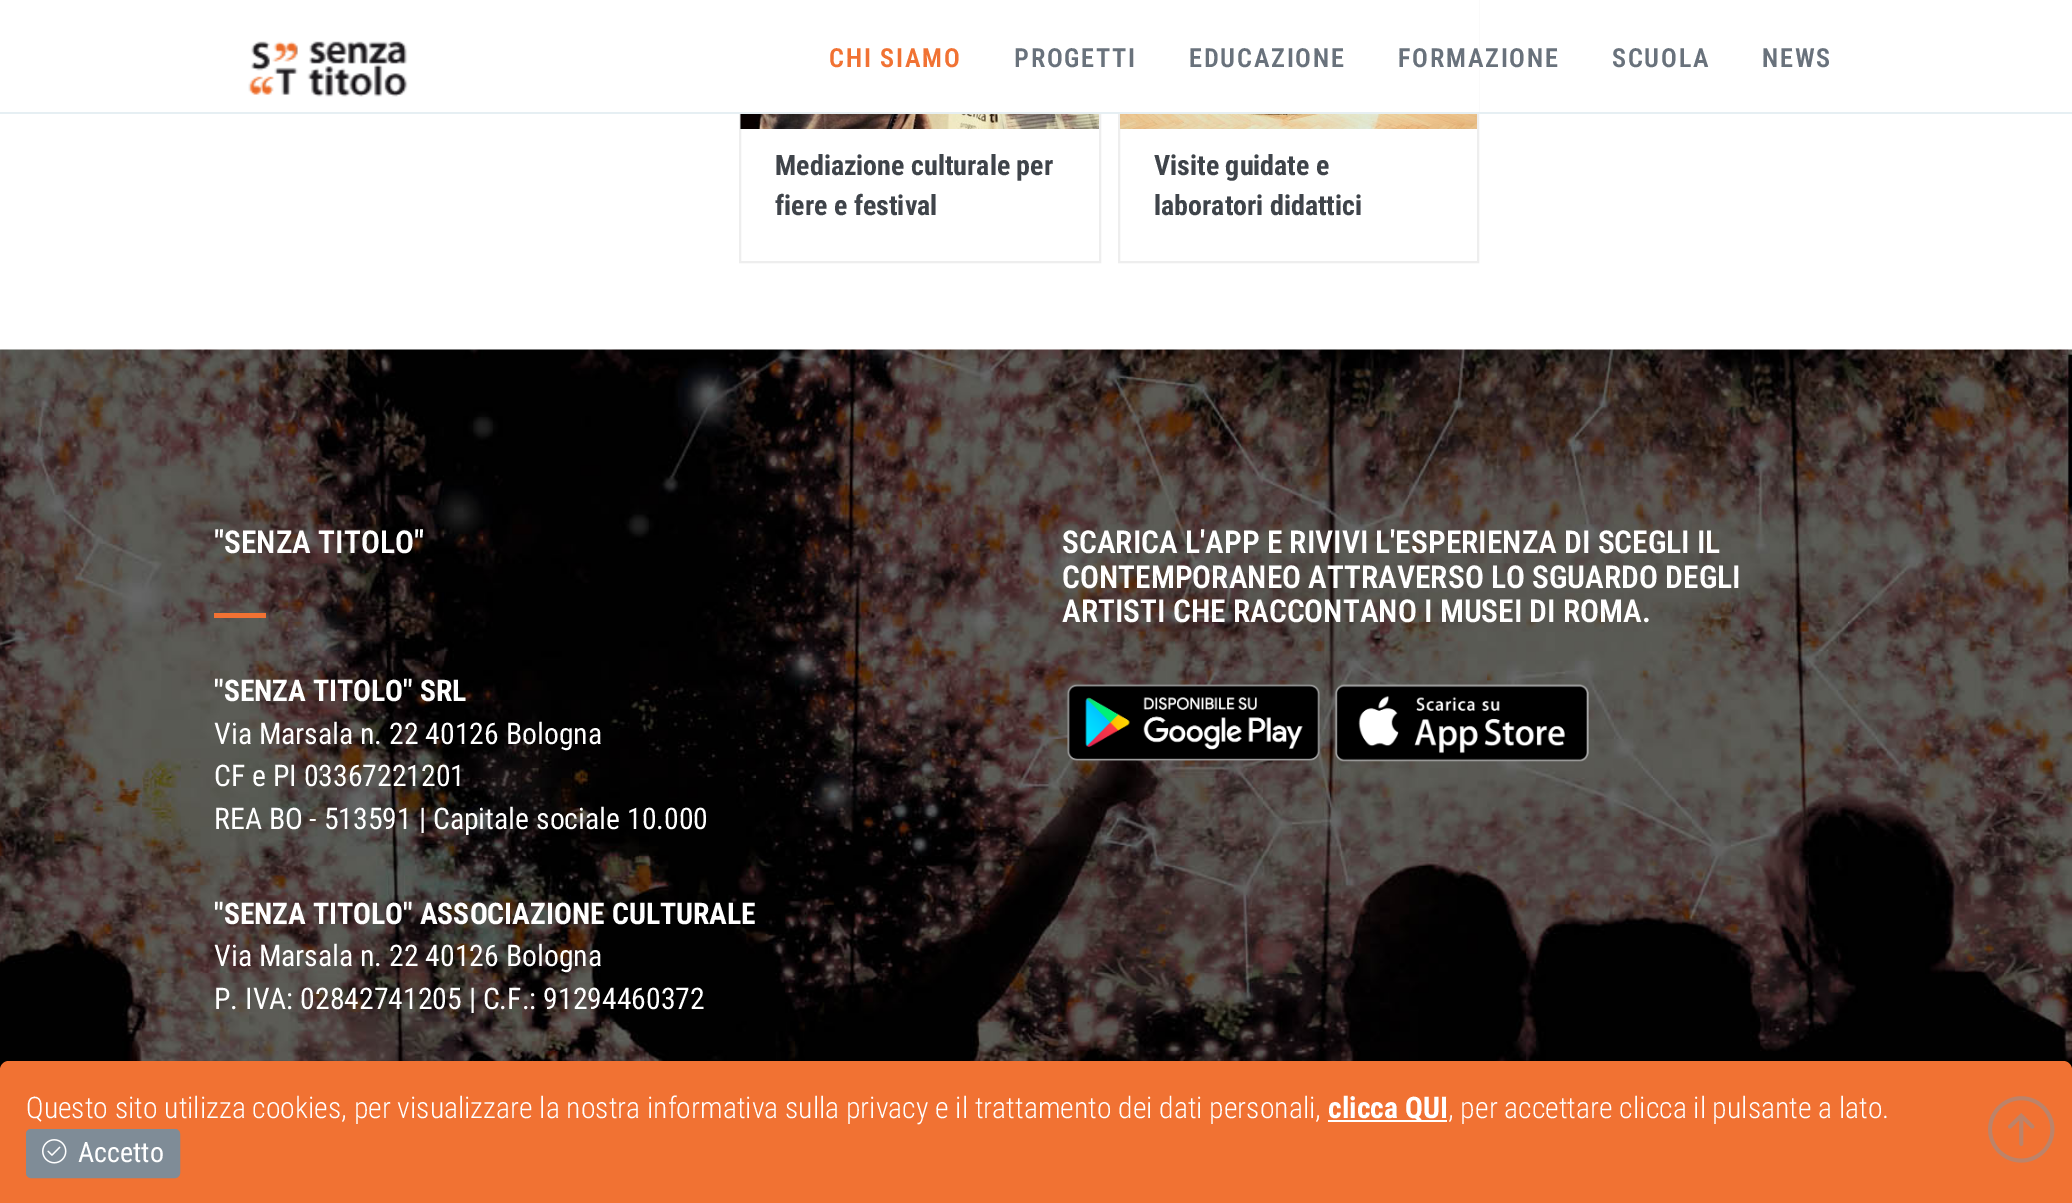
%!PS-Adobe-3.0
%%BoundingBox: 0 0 2072 1203
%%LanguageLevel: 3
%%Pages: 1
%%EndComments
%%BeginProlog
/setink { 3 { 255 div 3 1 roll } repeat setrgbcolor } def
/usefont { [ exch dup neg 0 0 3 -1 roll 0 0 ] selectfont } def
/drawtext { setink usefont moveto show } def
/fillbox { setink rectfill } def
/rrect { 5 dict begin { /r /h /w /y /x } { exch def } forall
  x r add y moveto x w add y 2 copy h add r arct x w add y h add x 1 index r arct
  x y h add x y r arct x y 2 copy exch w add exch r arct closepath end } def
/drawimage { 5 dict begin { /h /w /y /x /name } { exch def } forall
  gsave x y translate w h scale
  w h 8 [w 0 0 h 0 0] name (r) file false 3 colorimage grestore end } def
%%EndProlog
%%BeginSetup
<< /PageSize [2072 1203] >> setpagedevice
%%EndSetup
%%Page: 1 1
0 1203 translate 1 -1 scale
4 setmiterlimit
0 0 2072 1203 255 255 255 fillbox
238 238 238 setink
2 setlinewidth
740 -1 360 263 rectstroke
1119 -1 359 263 rectstroke
739 0 740 112 255 255 255 fillbox
0 112 2072 2 230 239 243 fillbox
(assets/img1.rgb) 248 41 160 56 drawimage
/RobotoCondensed-SemiBold 26.25 usefont
241 114 51 setink
829 67 moveto 1.75 0 (CHI SIAMO) ashow
105 114 124 setink
1014 67 moveto 1.75 0 (PROGETTI) ashow
1189 67 moveto 1.75 0 (EDUCAZIONE) ashow
1398 67 moveto 1.75 0 (FORMAZIONE) ashow
1612 67 moveto 1.75 0 (SCUOLA) ashow
1762 67 moveto 1.75 0 (NEWS) ashow
(assets/img2.rgb) 740 114 359 15 drawimage
(Mediazione culturale per) 775 175 /RobotoCondensed-Bold 28 63 68 74 drawtext
(fiere e festival) 775 215 /RobotoCondensed-Bold 28 63 68 74 drawtext
(assets/img3.rgb) 1120 114 357 15 drawimage
(Visite guidate e) 1154 175 /RobotoCondensed-Bold 28 63 68 74 drawtext
(laboratori didattici) 1154 215 /RobotoCondensed-Bold 28 63 68 74 drawtext
(assets/img4.rgb) 0 349 2072 721 drawimage
("SENZA TITOLO") 214 553 /RobotoCondensed-SemiBold 31.5 255 255 255 drawtext
214 613 52 5 241 114 51 fillbox
("SENZA TITOLO" SRL) 214 701 /RobotoCondensed-Bold 29.75 255 255 255 drawtext
(Via Marsala n. 22 40126 Bologna) 214 744 /RobotoCondensed-Regular 29.75 255 255 255 drawtext
(CF e PI 03367221201) 214 786 /RobotoCondensed-Regular 29.75 255 255 255 drawtext
(REA BO - 513591 | Capitale sociale 10.000) 214 829 /RobotoCondensed-Regular 29.75 255 255 255 drawtext
("SENZA TITOLO" ASSOCIAZIONE CULTURALE) 214 924 /RobotoCondensed-Bold 29.75 255 255 255 drawtext
(Via Marsala n. 22 40126 Bologna) 214 966 /RobotoCondensed-Regular 29.75 255 255 255 drawtext
(P. IVA: 02842741205 | C.F.: 91294460372) 214 1009 /RobotoCondensed-Regular 29.75 255 255 255 drawtext
(SCARICA L'APP E RIVIVI L'ESPERIENZA DI SCEGLI IL) 1062 553 /RobotoCondensed-SemiBold 31.5 255 255 255 drawtext
(CONTEMPORANEO ATTRAVERSO LO SGUARDO DEGLI) 1062 588 /RobotoCondensed-SemiBold 31.5 255 255 255 drawtext
(ARTISTI CHE RACCONTANO I MUSEI DI ROMA.) 1062 622 /RobotoCondensed-SemiBold 31.5 255 255 255 drawtext
(assets/img5.rgb) 1067 684 253 77 drawimage
(assets/img6.rgb) 1335 684 254 78 drawimage
241 114 51 setink
9 1061 moveto 2063 1061 lineto 2068 1061 2072 1065 2072 1070 curveto 2072 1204 lineto 0 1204 lineto 0 1070 lineto 0 1065 4 1061 9 1061 curveto closepath fill
(Questo sito utilizza cookies, per visualizzare la nostra informativa sulla privacy e il trattamento dei dati personali,) 26 1118 /RobotoCondensed-Light 29.75 255 255 255 drawtext
1328 1120 119 2 255 255 255 fillbox
(clicca QUI) 1328 1118 /RobotoCondensed-Bold 29.75 255 255 255 drawtext
(, per accettare clicca il pulsante a lato.) 1448 1118 /RobotoCondensed-Light 29.75 255 255 255 drawtext
127 140 151 setink
27 1130 152 47 4 rrect gsave fill grestore
stroke
(assets/img7.rgb) 42 1139 25 25 drawimage
(Accetto) 78 1162 /RobotoCondensed-Regular 28 255 255 255 drawtext
(assets/img8.rgb) 1988 1096 67 67 drawimage
showpage
%%EOF
